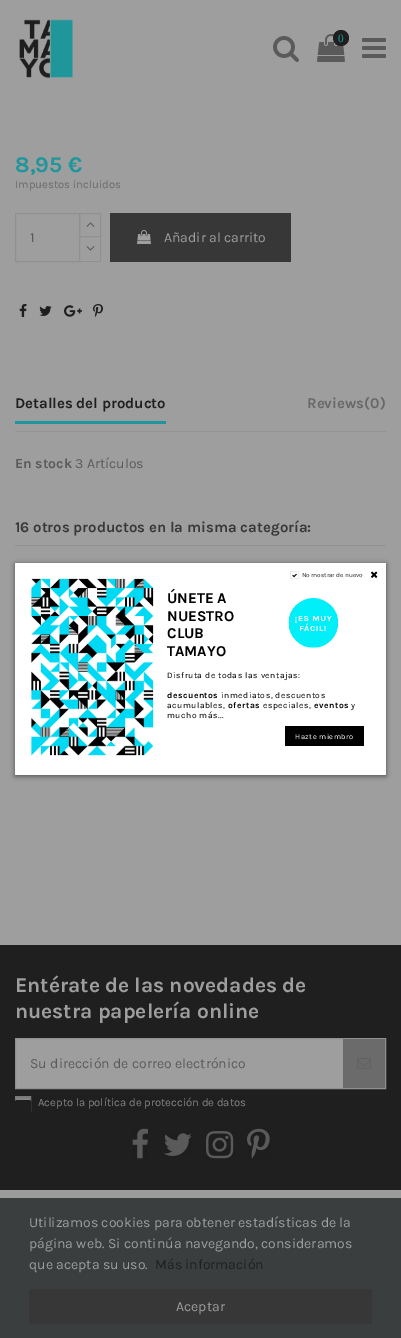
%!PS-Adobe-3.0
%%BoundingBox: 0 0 401 1338
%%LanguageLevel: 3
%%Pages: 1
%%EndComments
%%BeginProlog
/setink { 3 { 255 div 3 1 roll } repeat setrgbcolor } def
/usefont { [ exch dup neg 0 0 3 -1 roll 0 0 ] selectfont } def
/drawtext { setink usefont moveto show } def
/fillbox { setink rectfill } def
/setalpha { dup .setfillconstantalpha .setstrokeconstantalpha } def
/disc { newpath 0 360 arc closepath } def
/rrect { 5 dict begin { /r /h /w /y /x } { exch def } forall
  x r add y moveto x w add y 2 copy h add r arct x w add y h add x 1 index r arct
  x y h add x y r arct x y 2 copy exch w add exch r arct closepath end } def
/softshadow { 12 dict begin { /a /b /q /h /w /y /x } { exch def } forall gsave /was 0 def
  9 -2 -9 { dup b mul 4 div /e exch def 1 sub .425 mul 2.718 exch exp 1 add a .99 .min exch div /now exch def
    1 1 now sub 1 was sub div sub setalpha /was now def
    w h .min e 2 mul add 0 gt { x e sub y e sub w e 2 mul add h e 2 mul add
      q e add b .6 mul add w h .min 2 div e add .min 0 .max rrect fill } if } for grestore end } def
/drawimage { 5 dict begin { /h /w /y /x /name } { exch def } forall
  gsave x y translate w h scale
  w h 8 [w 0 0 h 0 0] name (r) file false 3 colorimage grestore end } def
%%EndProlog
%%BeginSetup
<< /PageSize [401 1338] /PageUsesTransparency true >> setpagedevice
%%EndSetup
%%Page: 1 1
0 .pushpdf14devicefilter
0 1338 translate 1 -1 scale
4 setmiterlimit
0 0 401 1338 158 158 158 fillbox
(assets/img1.rgb) 19 19 54 59 drawimage
(assets/img2.rgb) 273 36 26 26 drawimage
(assets/img3.rgb) 317 34 28 28 drawimage
31 31 31 setink
341 38 8 disc fill
(0) 338 42 /LiberationSerif-Regular 11.25 31 150 155 drawtext
(assets/img4.rgb) 362 38 24 20 drawimage
(8,95 €) 15 172 /Karla-Bold 22.5 31 150 155 drawtext
(Impuestos incluidos) 15 188 /Karla-Regular 11.25 104 104 104 drawtext
144 144 144 setink
15.5 213.5 64 48 rectstroke
(1) 30 242 /Karla-Regular 14 90 90 90 drawtext
144 144 144 setink
79.5 213.5 21 23 rectstroke
(assets/img5.rgb) 86 222 9 5 drawimage
79 237 1 24 158 158 158 fillbox
144 144 144 setink
101 237 moveto 101 262 lineto 100 261 lineto 100 238 lineto closepath fill
79 261 22 1 144 144 144 fillbox
79 262 moveto 79 237 lineto 80 238 lineto 80 261 lineto closepath fill
(assets/img6.rgb) 86 246 9 5 drawimage
110 213 181 49 55 55 55 fillbox
(assets/img7.rgb) 137 230 14 14 drawimage
(Añadir al carrito) 164 242 /Karla-Regular 14 158 158 158 drawtext
(assets/img8.rgb) 19 304 8 13 drawimage
(assets/img9.rgb) 39 306 13 10 drawimage
(assets/img10.rgb) 64 305 18 12 drawimage
(assets/img11.rgb) 93 304 10 13 drawimage
15 431 371 1 147 147 147 fillbox
15 421 151 3 31 150 155 fillbox
(Detalles del producto) 15 408 /Karla-Bold 14.9 31 31 31 drawtext
(Reviews\(0\)) 307 408 /Karla-Bold 14.9 104 104 104 drawtext
(En stock) 15 468 /Karla-Bold 14 90 90 90 drawtext
(3 Artículos) 75 468 /Karla-Regular 14 90 90 90 drawtext
15 545 371 1 144 144 144 fillbox
(16 otros productos en la misma categoría:) 15 532 /Karla-Bold 14.9 56 56 56 drawtext
0 1190 401 8 155 155 155 fillbox
0 945 401 245 31 31 31 fillbox
(Entérate de las novedades de) 15 992 /Karla-Bold 21 158 158 158 drawtext
(nuestra papelería online) 15 1018 /Karla-Bold 21 158 158 158 drawtext
16 1039 327 49 158 158 158 fillbox
144 144 144 setink
15.5 1038.5 370 50 rectstroke
(Su dirección de correo electrónico) 30 1068 /Karla-Regular 14 90 90 90 drawtext
343 1039 42 49 107 107 107 fillbox
(assets/img12.rgb) 357 1058 14 11 drawimage
16 1098 14 3 133 133 133 fillbox
16 1097 14 1 124 124 124 fillbox
122 122 122 setink
15.5 1096.5 15 15 rectstroke
(Acepto la política de protección de datos) 38 1106 /Karla-Regular 11.25 133 133 133 drawtext
31 31 31 setink
15.5 1100.5 15 15 1.5 rrect gsave fill grestore
stroke
(assets/img13.rgb) 132 1128 16 31 drawimage
(assets/img14.rgb) 164 1133 28 23 drawimage
(assets/img15.rgb) 206 1131 28 28 drawimage
(assets/img16.rgb) 247 1128 23 31 drawimage
0 0 0 setink
15 564 371 212 0 2.5 0.5 softshadow
15 563 371 212 255 255 255 fillbox
227 227 227 setink
0.5 setlinewidth
290.25 571.25 8.5 7.5 rectstroke
(assets/img17.rgb) 292 573 5 5 drawimage
(No mostrar de nuevo) 302 577 /Karla-Regular 6.4 33 37 41 drawtext
(assets/img18.rgb) 371 571 7 7 drawimage
(assets/img19.rgb) 31 578 123 178 drawimage
(ÚNETE A) 167 603 /Karla-Bold 15 0 0 0 drawtext
(NUESTRO) 167 621 /Karla-Bold 15 0 0 0 drawtext
(assets/img20.rgb) 288 598 50 50 drawimage
(CLUB) 167 638 /Karla-Bold 15 0 0 0 drawtext
(TAMAYO) 167 656 /Karla-Bold 15 0 0 0 drawtext
/Karla-Regular 8.5 usefont
167 678 moveto 0.5 0 (Disfruta de todas las ventajas:) ashow
/Karla-Bold 8.5 usefont
167 698 moveto 0.5 0 (descuentos) ashow
/Karla-Regular 8.5 usefont
221 698 moveto 0.5 0 (inmediatos, descuentos) ashow
167 708 moveto 0.5 0 (acumulables,) ashow
/Karla-Bold 8.5 usefont
228 708 moveto 0.5 0 (ofertas) ashow
/Karla-Regular 8.5 usefont
263 708 moveto 0.5 0 (especiales,) ashow
/Karla-Bold 8.5 usefont
314 708 moveto 0.5 0 (eventos) ashow
/Karla-Regular 8.5 usefont
351 708 moveto 0.5 0 (y) ashow
167 718 moveto 0.5 0 (mucho más...) ashow
285 726 79 20 0 0 0 fillbox
/Karla-Regular 7.5 usefont
255 255 255 setink
295 739 moveto 0.5 0 (Hazte miembro) ashow
0 1198 401 140 58 62 62 fillbox
(Utilizamos cookies para obtener estadísticas de la) 29 1227 /Karla-Regular 14 158 158 158 drawtext
(página web. Si continúa navegando, consideramos) 29 1248 /Karla-Regular 14 158 158 158 drawtext
(que acepta su uso.) 29 1269 /Karla-Regular 14 158 158 158 drawtext
(Más información) 155 1269 /Karla-Regular 14 31 31 31 drawtext
29 1289 343 35 55 55 55 fillbox
(Aceptar) 176 1311 /Karla-Regular 14 158 158 158 drawtext
.poppdf14devicefilter showpage
%%EOF
